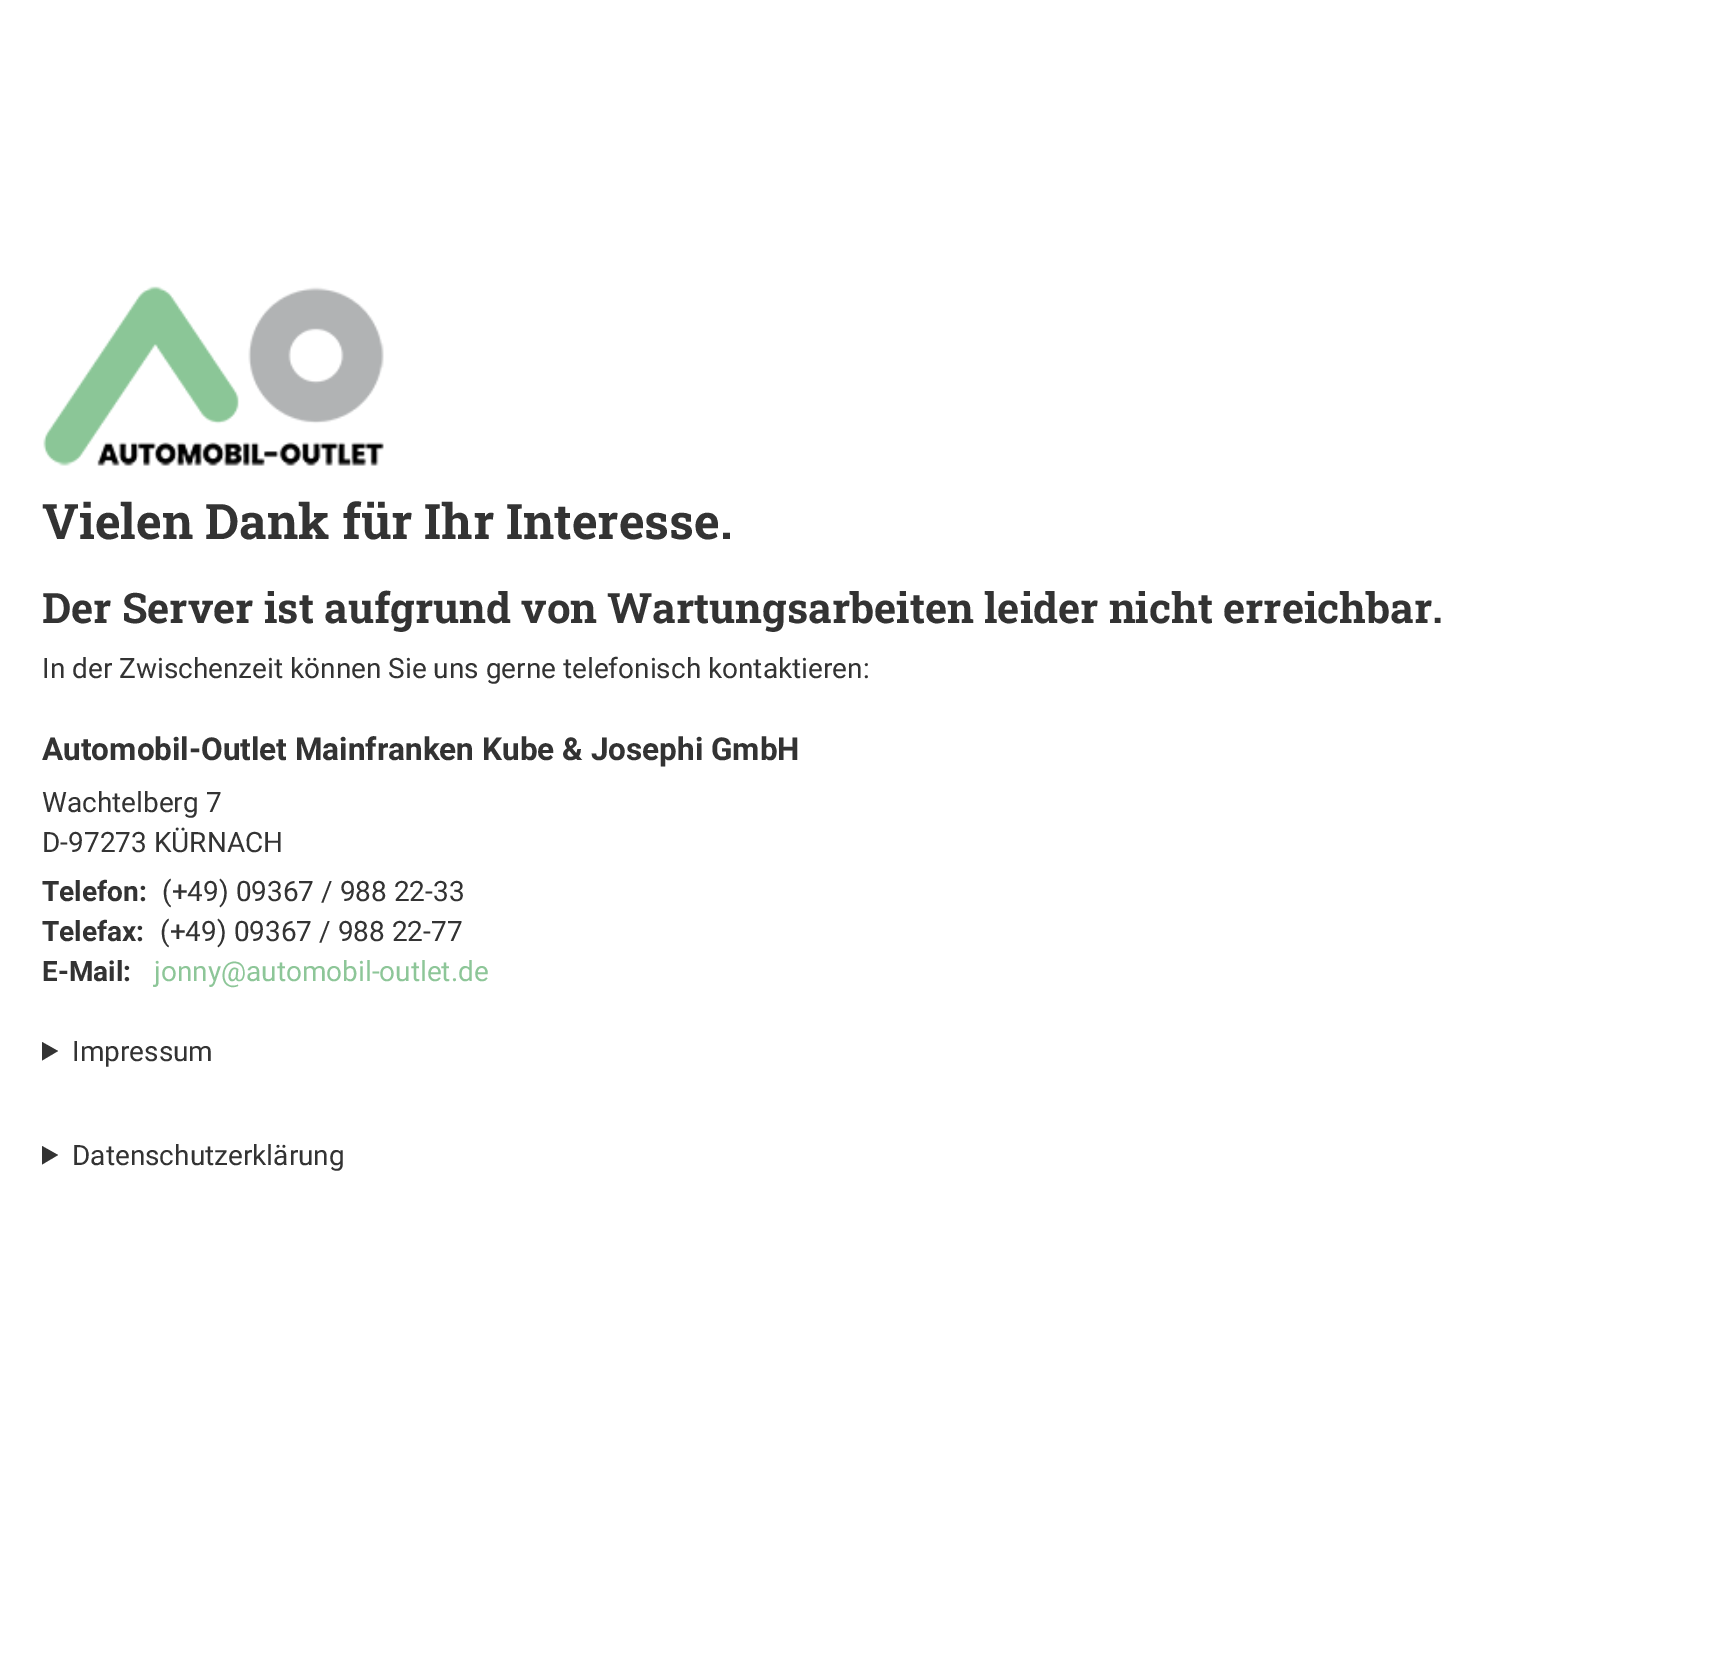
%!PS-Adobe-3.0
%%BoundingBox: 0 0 1727 1680
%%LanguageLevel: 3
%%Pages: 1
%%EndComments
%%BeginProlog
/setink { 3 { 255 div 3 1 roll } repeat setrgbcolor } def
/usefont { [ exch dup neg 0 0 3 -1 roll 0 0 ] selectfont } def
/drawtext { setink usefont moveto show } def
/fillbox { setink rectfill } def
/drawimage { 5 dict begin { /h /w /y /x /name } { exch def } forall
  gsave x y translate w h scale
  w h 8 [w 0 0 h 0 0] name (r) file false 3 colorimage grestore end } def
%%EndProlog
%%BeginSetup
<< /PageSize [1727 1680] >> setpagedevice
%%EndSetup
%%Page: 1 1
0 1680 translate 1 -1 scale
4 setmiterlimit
0 0 1727 1680 255 255 255 fillbox
(assets/img1.rgb) 43 286 341 180 drawimage
(Vielen Dank für Ihr Interesse.) 42 539 /RobotoSlab-Bold 49 51 51 51 drawtext
(Der Server ist aufgrund von Wartungsarbeiten leider nicht erreichbar.) 42 623 /RobotoSlab-Bold 42 51 51 51 drawtext
(In der Zwischenzeit können Sie uns gerne telefonisch kontaktieren:) 42 678 /Roboto-Regular 28 51 51 51 drawtext
(Automobil-Outlet Mainfranken Kube & Josephi GmbH) 42 760 /Roboto-Bold 31.5 51 51 51 drawtext
(Wachtelberg 7) 42 812 /Roboto-Regular 28 51 51 51 drawtext
(D-97273 KÜRNACH) 42 852 /Roboto-Regular 28 51 51 51 drawtext
(Telefon:) 42 901 /Roboto-Bold 28 51 51 51 drawtext
(\(+49\) 09367 / 988 22-33) 162 901 /Roboto-Regular 28 51 51 51 drawtext
(Telefax:) 42 941 /Roboto-Bold 28 51 51 51 drawtext
(\(+49\) 09367 / 988 22-77) 160 941 /Roboto-Regular 28 51 51 51 drawtext
(E-Mail:) 42 981 /Roboto-Bold 28 51 51 51 drawtext
(jonny@automobil-outlet.de) 154 981 /Roboto-Regular 28 141 198 152 drawtext
51 51 51 setink
42 1042 moveto 58 1051 lineto 42 1060.5 lineto closepath fill
(Impressum) 72 1061 /Roboto-Regular 28 51 51 51 drawtext
42 1146 moveto 58 1155 lineto 42 1164.5 lineto closepath fill
(Datenschutzerklärung) 72 1165 /Roboto-Regular 28 51 51 51 drawtext
showpage
%%EOF
